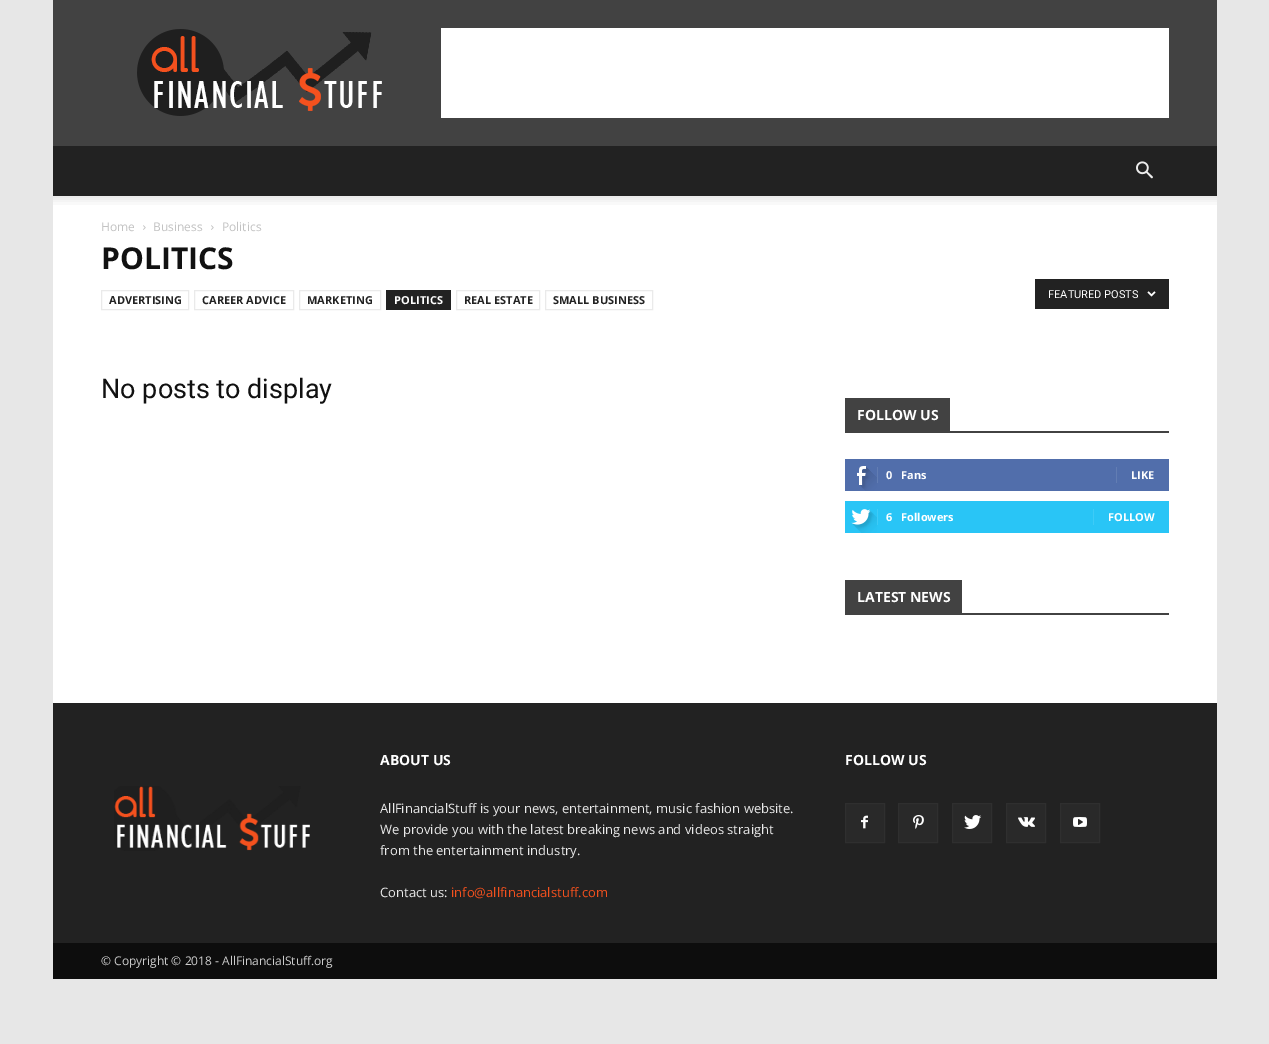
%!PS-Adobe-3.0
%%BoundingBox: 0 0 1269 1044
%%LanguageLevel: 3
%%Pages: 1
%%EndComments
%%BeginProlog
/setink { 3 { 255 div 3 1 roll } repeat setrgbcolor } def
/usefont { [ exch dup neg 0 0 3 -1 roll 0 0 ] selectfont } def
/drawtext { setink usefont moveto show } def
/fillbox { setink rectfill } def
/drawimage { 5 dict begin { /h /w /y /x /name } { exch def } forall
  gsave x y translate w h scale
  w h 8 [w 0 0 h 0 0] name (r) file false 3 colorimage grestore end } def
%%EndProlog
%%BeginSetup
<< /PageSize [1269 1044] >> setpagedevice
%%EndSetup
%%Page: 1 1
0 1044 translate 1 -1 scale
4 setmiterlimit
0 0 1269 1044 231 231 231 fillbox
53 0 1164 146 66 66 66 fillbox
(assets/img1.rgb) 137 29 245 87 drawimage
441 28 728 90 255 255 255 fillbox
53 146 1164 50 34 34 34 fillbox
(assets/img2.rgb) 1136 161 17 18 drawimage
53 196 1164 507 255 255 255 fillbox
(assets/img3.rgb) 53 196 1164 9 drawimage
(Home) 101 231 /OpenSans-Regular 12 195 195 195 drawtext
(assets/img4.rgb) 143 225 3 5 drawimage
(Business) 153 231 /OpenSans-Regular 12 195 195 195 drawtext
(assets/img4.rgb) 211 225 3 5 drawimage
(Politics) 222 231 /OpenSans-Regular 12 195 195 195 drawtext
(POLITICS) 101 269 /OpenSans-Bold 30 17 17 17 drawtext
234 234 234 setink
101.5 290.5 87 19 rectstroke
(ADVERTISING) 109 304 /OpenSans-Bold 11 34 34 34 drawtext
234 234 234 setink
194.5 290.5 99 19 rectstroke
(CAREER ADVICE) 202 304 /OpenSans-Bold 11 34 34 34 drawtext
234 234 234 setink
299.5 290.5 81 19 rectstroke
(MARKETING) 307 304 /OpenSans-Bold 11 34 34 34 drawtext
386 290 65 20 34 34 34 fillbox
(POLITICS) 394 304 /OpenSans-Bold 11 255 255 255 drawtext
234 234 234 setink
456.5 290.5 83 19 rectstroke
(REAL ESTATE) 464 304 /OpenSans-Bold 11 34 34 34 drawtext
234 234 234 setink
545.5 290.5 107 19 rectstroke
(SMALL BUSINESS) 553 304 /OpenSans-Bold 11 34 34 34 drawtext
1035 279 134 30 34 34 34 fillbox
(FEATURED POSTS) 1048 298 /Roboto-Regular 11 255 255 255 drawtext
(assets/img5.rgb) 1147 291 9 6 drawimage
(No posts to display) 101 398 /Roboto-Regular 27 17 17 17 drawtext
845 431 324 2 66 66 66 fillbox
845 398 105 33 66 66 66 fillbox
(FOLLOW US) 857 420 /OpenSans-Bold 14 255 255 255 drawtext
845 459 324 32 81 110 171 fillbox
(assets/img6.rgb) 857 466 20 25 drawimage
877 467 1 16 98 125 179 fillbox
(0) 886 479 /OpenSans-Bold 11 255 255 255 drawtext
(Fans) 901 479 /OpenSans-Bold 11 255 255 255 drawtext
1116 467 1 16 98 125 179 fillbox
(LIKE) 1131 479 /OpenSans-Bold 11 255 255 255 drawtext
845 501 324 32 41 197 246 fillbox
(assets/img7.rgb) 851 509 26 24 drawimage
877 509 1 16 62 203 247 fillbox
(6) 886 521 /OpenSans-Bold 11 255 255 255 drawtext
(Followers) 901 521 /OpenSans-Bold 11 255 255 255 drawtext
1093 509 1 16 62 203 247 fillbox
(FOLLOW) 1108 521 /OpenSans-Bold 11 255 255 255 drawtext
845 613 324 2 66 66 66 fillbox
845 580 117 33 66 66 66 fillbox
(LATEST NEWS) 857 602 /OpenSans-Bold 14 255 255 255 drawtext
53 703 1164 240 34 34 34 fillbox
(ABOUT US) 380 765 /OpenSans-Bold 14 255 255 255 drawtext
(AllFinancialStuff is your news, entertainment, music fashion website.) 380 813 /OpenSans-Regular 13 234 234 234 drawtext
(We provide you with the latest breaking news and videos straight) 380 834 /OpenSans-Regular 13 234 234 234 drawtext
(from the entertainment industry.) 380 855 /OpenSans-Regular 13 234 234 234 drawtext
(Contact us:) 380 897 /OpenSans-Regular 13 234 234 234 drawtext
(info@allfinancialstuff.com) 451 897 /OpenSans-Regular 13 244 81 30 drawtext
(FOLLOW US) 845 765 /OpenSans-Bold 14 255 255 255 drawtext
846 804 38 38 41 41 41 fillbox
(assets/img8.rgb) 861 815 7 14 drawimage
47 47 47 setink
845.5 803.5 39 39 rectstroke
899 804 38 38 41 41 41 fillbox
(assets/img9.rgb) 913 815 11 14 drawimage
47 47 47 setink
898.5 803.5 39 39 rectstroke
953 804 38 38 41 41 41 fillbox
(assets/img10.rgb) 964 815 18 14 drawimage
47 47 47 setink
952.5 803.5 39 39 rectstroke
1007 804 38 38 41 41 41 fillbox
(assets/img11.rgb) 1018 817 17 10 drawimage
47 47 47 setink
1006.5 803.5 39 39 rectstroke
1061 804 38 38 41 41 41 fillbox
(assets/img12.rgb) 1073 817 14 10 drawimage
47 47 47 setink
1060.5 803.5 39 39 rectstroke
(assets/img13.rgb) 114 786 196 65 drawimage
53 943 1164 36 13 13 13 fillbox
(© Copyright © 2018 - AllFinancialStuff.org) 101 965 /OpenSans-Regular 12 204 204 204 drawtext
showpage
%%EOF
